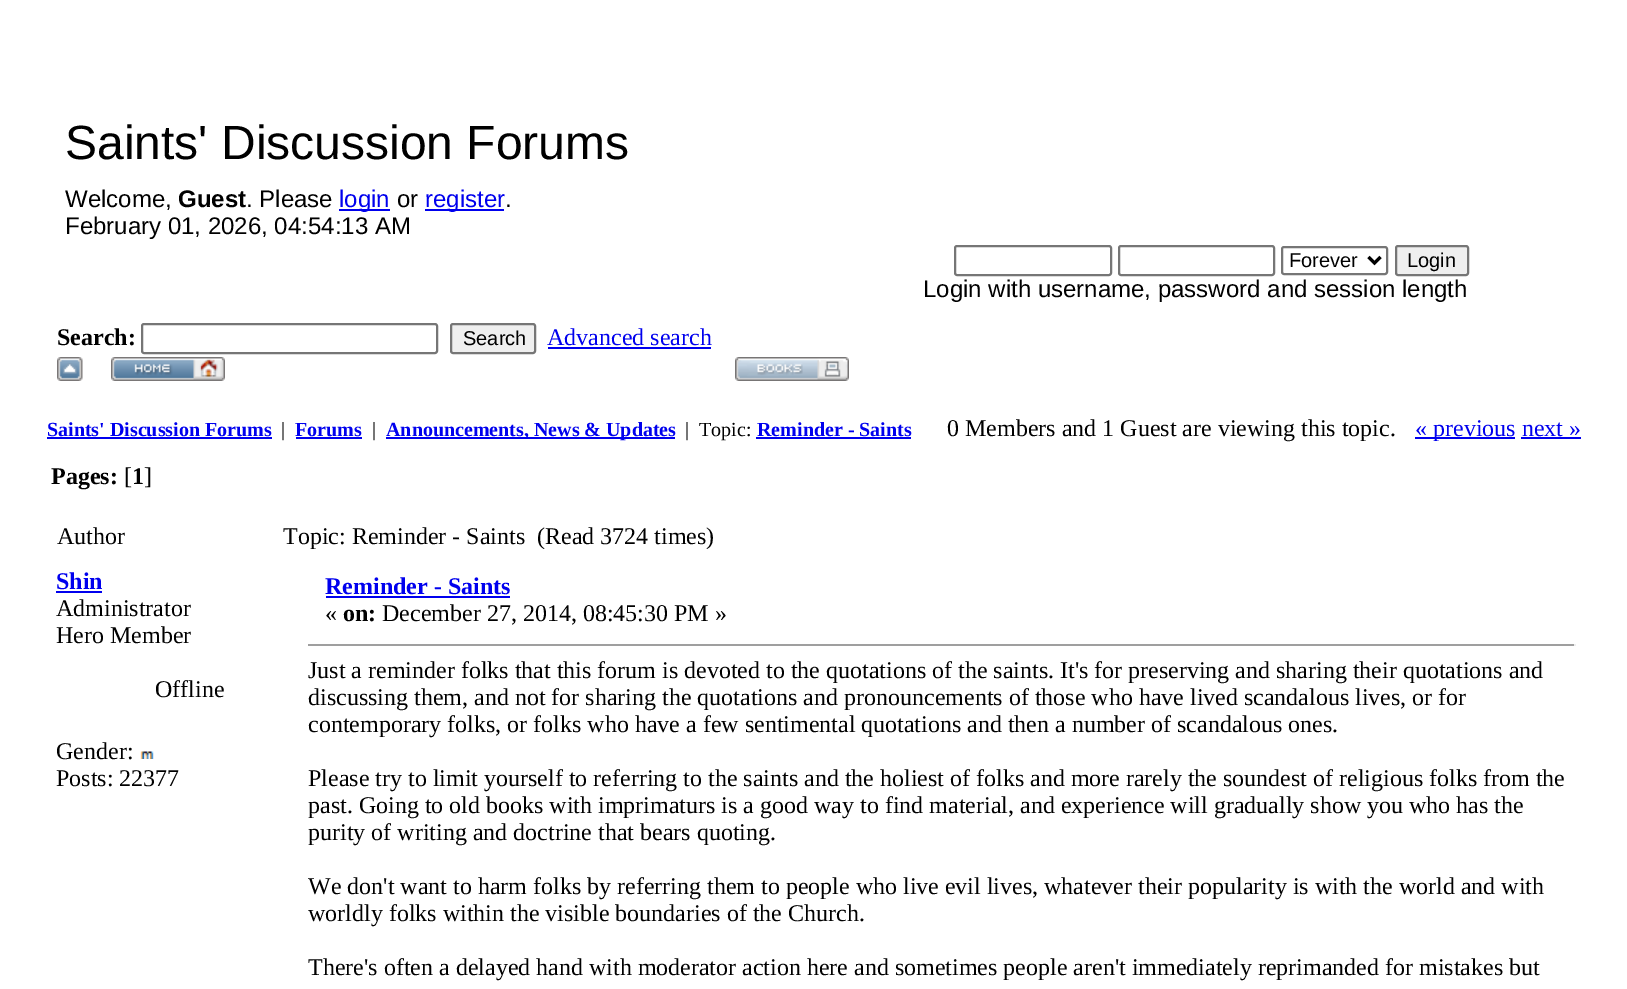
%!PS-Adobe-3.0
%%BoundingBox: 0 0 1627 989
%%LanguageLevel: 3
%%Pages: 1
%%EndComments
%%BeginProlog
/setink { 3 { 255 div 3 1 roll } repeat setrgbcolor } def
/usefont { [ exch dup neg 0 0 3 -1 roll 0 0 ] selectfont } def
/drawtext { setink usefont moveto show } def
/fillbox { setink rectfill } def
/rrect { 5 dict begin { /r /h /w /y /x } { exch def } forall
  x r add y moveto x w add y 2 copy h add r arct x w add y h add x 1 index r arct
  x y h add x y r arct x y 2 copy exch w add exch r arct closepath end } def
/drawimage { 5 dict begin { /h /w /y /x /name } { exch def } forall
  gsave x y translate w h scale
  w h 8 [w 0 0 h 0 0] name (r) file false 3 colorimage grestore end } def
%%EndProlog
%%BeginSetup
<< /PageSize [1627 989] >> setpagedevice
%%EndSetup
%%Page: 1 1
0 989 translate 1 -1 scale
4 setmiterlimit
0 0 1627 989 255 255 255 fillbox
(Saints' Discussion Forums) 65 159 /LiberationSans-Regular 48 0 0 0 drawtext
(Welcome,) 65 207 /LiberationSans-Regular 24 0 0 0 drawtext
(Guest) 178 207 /LiberationSans-Bold 24 0 0 0 drawtext
(. Please) 246 207 /LiberationSans-Regular 24 0 0 0 drawtext
339 209 51 2 0 0 238 fillbox
(login) 339 207 /LiberationSans-Regular 24 0 0 238 drawtext
(or) 397 207 /LiberationSans-Regular 24 0 0 0 drawtext
425 209 79 2 0 0 238 fillbox
(register) 425 207 /LiberationSans-Regular 24 0 0 238 drawtext
(.) 505 207 /LiberationSans-Regular 24 0 0 0 drawtext
(February 01, 2026, 04:54:13 AM) 65 234 /LiberationSans-Regular 24 0 0 0 drawtext
118 118 118 setink
2 setlinewidth
955 246 156 29 2 rrect stroke
1119 246 155 29 2 rrect stroke
1282 247 105 27 2 rrect stroke
0 0 0 setink
3 setlinewidth
1368.5 257 moveto 1374.5 263 lineto 1380.5 257 lineto stroke
(Forever) 1289 267 /LiberationSans-Regular 20 0 0 0 drawtext
239 239 239 setink
1396 246 72 29 2 rrect gsave fill grestore
118 118 118 setink
2 setlinewidth
stroke
(Login) 1407 267 /LiberationSans-Regular 20 0 0 0 drawtext
(Login with username, password and session length) 923 297 /LiberationSans-Regular 24 0 0 0 drawtext
(Search:) 57 345 /LiberationSerif-Bold 24 0 0 0 drawtext
118 118 118 setink
142 324 295 29 2 rrect stroke
239 239 239 setink
451 324 84 29 2 rrect gsave fill grestore
118 118 118 setink
stroke
(Search) 463 345 /LiberationSans-Regular 20 0 0 0 drawtext
(Advanced search) 547 345 /LiberationSerif-Regular 24 0 0 238 drawtext
548 347 163 2 0 0 238 fillbox
(assets/img1.rgb) 57 357 26 24 drawimage
(assets/img2.rgb) 111 357 114 24 drawimage
(assets/img3.rgb) 735 357 114 24 drawimage
(Saints' Discussion Forums) 47 436 /LiberationSerif-Bold 20 0 0 238 drawtext
47 437 225 2 0 0 238 fillbox
(|) 281 436 /LiberationSerif-Regular 20 0 0 0 drawtext
(Forums) 295 436 /LiberationSerif-Bold 20 0 0 238 drawtext
296 437 66 2 0 0 238 fillbox
(|) 372 436 /LiberationSerif-Regular 20 0 0 0 drawtext
386 437 289 2 0 0 238 fillbox
(Announcements, News & Updates) 386 436 /LiberationSerif-Bold 20 0 0 238 drawtext
(|  Topic:) 685 436 /LiberationSerif-Regular 20 0 0 0 drawtext
(Reminder - Saints) 757 436 /LiberationSerif-Bold 20 0 0 238 drawtext
756 437 155 2 0 0 238 fillbox
(0 Members and 1 Guest are viewing this topic.) 947 436 /LiberationSerif-Regular 24 0 0 0 drawtext
1415 437 100 2 0 0 238 fillbox
(« previous next ») 1415 436 /LiberationSerif-Regular 24 0 0 238 drawtext
1521 437 60 2 0 0 238 fillbox
(Pages:) 51 484 /LiberationSerif-Bold 24 0 0 0 drawtext
([) 124 484 /LiberationSerif-Regular 24 0 0 0 drawtext
(1) 132 484 /LiberationSerif-Bold 24 0 0 0 drawtext
(]) 144 484 /LiberationSerif-Regular 24 0 0 0 drawtext
(Author) 57 544 /LiberationSerif-Regular 24 0 0 0 drawtext
(Topic: Reminder - Saints  \(Read 3724 times\)) 283 544 /LiberationSerif-Regular 24 0 0 0 drawtext
(Shin) 56 589 /LiberationSerif-Bold 24 0 0 238 drawtext
56 591 46 2 0 0 238 fillbox
(Administrator) 56 616 /LiberationSerif-Regular 24 0 0 0 drawtext
(Hero Member) 56 643 /LiberationSerif-Regular 24 0 0 0 drawtext
(Offline) 155 697 /LiberationSerif-Regular 24 0 0 0 drawtext
(Gender:) 56 759 /LiberationSerif-Regular 24 0 0 0 drawtext
(assets/img4.rgb) 140 751 14 8 drawimage
(Posts: 22377) 56 786 /LiberationSerif-Regular 24 0 0 0 drawtext
(Reminder - Saints) 325 594 /LiberationSerif-Bold 24 0 0 238 drawtext
326 596 184 2 0 0 238 fillbox
(«) 325 621 /LiberationSerif-Regular 24 0 0 0 drawtext
(on:) 343 621 /LiberationSerif-Bold 24 0 0 0 drawtext
(December 27, 2014, 08:45:30 PM ») 382 621 /LiberationSerif-Regular 24 0 0 0 drawtext
308 644 1267 2 159 159 159 fillbox
1574 644 2 2 238 238 238 fillbox
(Just a reminder folks that this forum is devoted to the quotations of the saints. It's for preserving and sharing their quotations and) 308 678 /LiberationSerif-Regular 24 0 0 0 drawtext
(discussing them, and not for sharing the quotations and pronouncements of those who have lived scandalous lives, or for) 308 705 /LiberationSerif-Regular 24 0 0 0 drawtext
(contemporary folks, or folks who have a few sentimental quotations and then a number of scandalous ones.) 308 732 /LiberationSerif-Regular 24 0 0 0 drawtext
(Please try to limit yourself to referring to the saints and the holiest of folks and more rarely the soundest of religious folks from the) 308 786 /LiberationSerif-Regular 24 0 0 0 drawtext
(past. Going to old books with imprimaturs is a good way to find material, and experience will gradually show you who has the) 308 813 /LiberationSerif-Regular 24 0 0 0 drawtext
(purity of writing and doctrine that bears quoting.) 308 840 /LiberationSerif-Regular 24 0 0 0 drawtext
(We don't want to harm folks by referring them to people who live evil lives, whatever their popularity is with the world and with) 308 894 /LiberationSerif-Regular 24 0 0 0 drawtext
(worldly folks within the visible boundaries of the Church.) 308 921 /LiberationSerif-Regular 24 0 0 0 drawtext
(There's often a delayed hand with moderator action here and sometimes people aren't immediately reprimanded for mistakes but) 308 975 /LiberationSerif-Regular 24 0 0 0 drawtext
showpage
%%EOF
